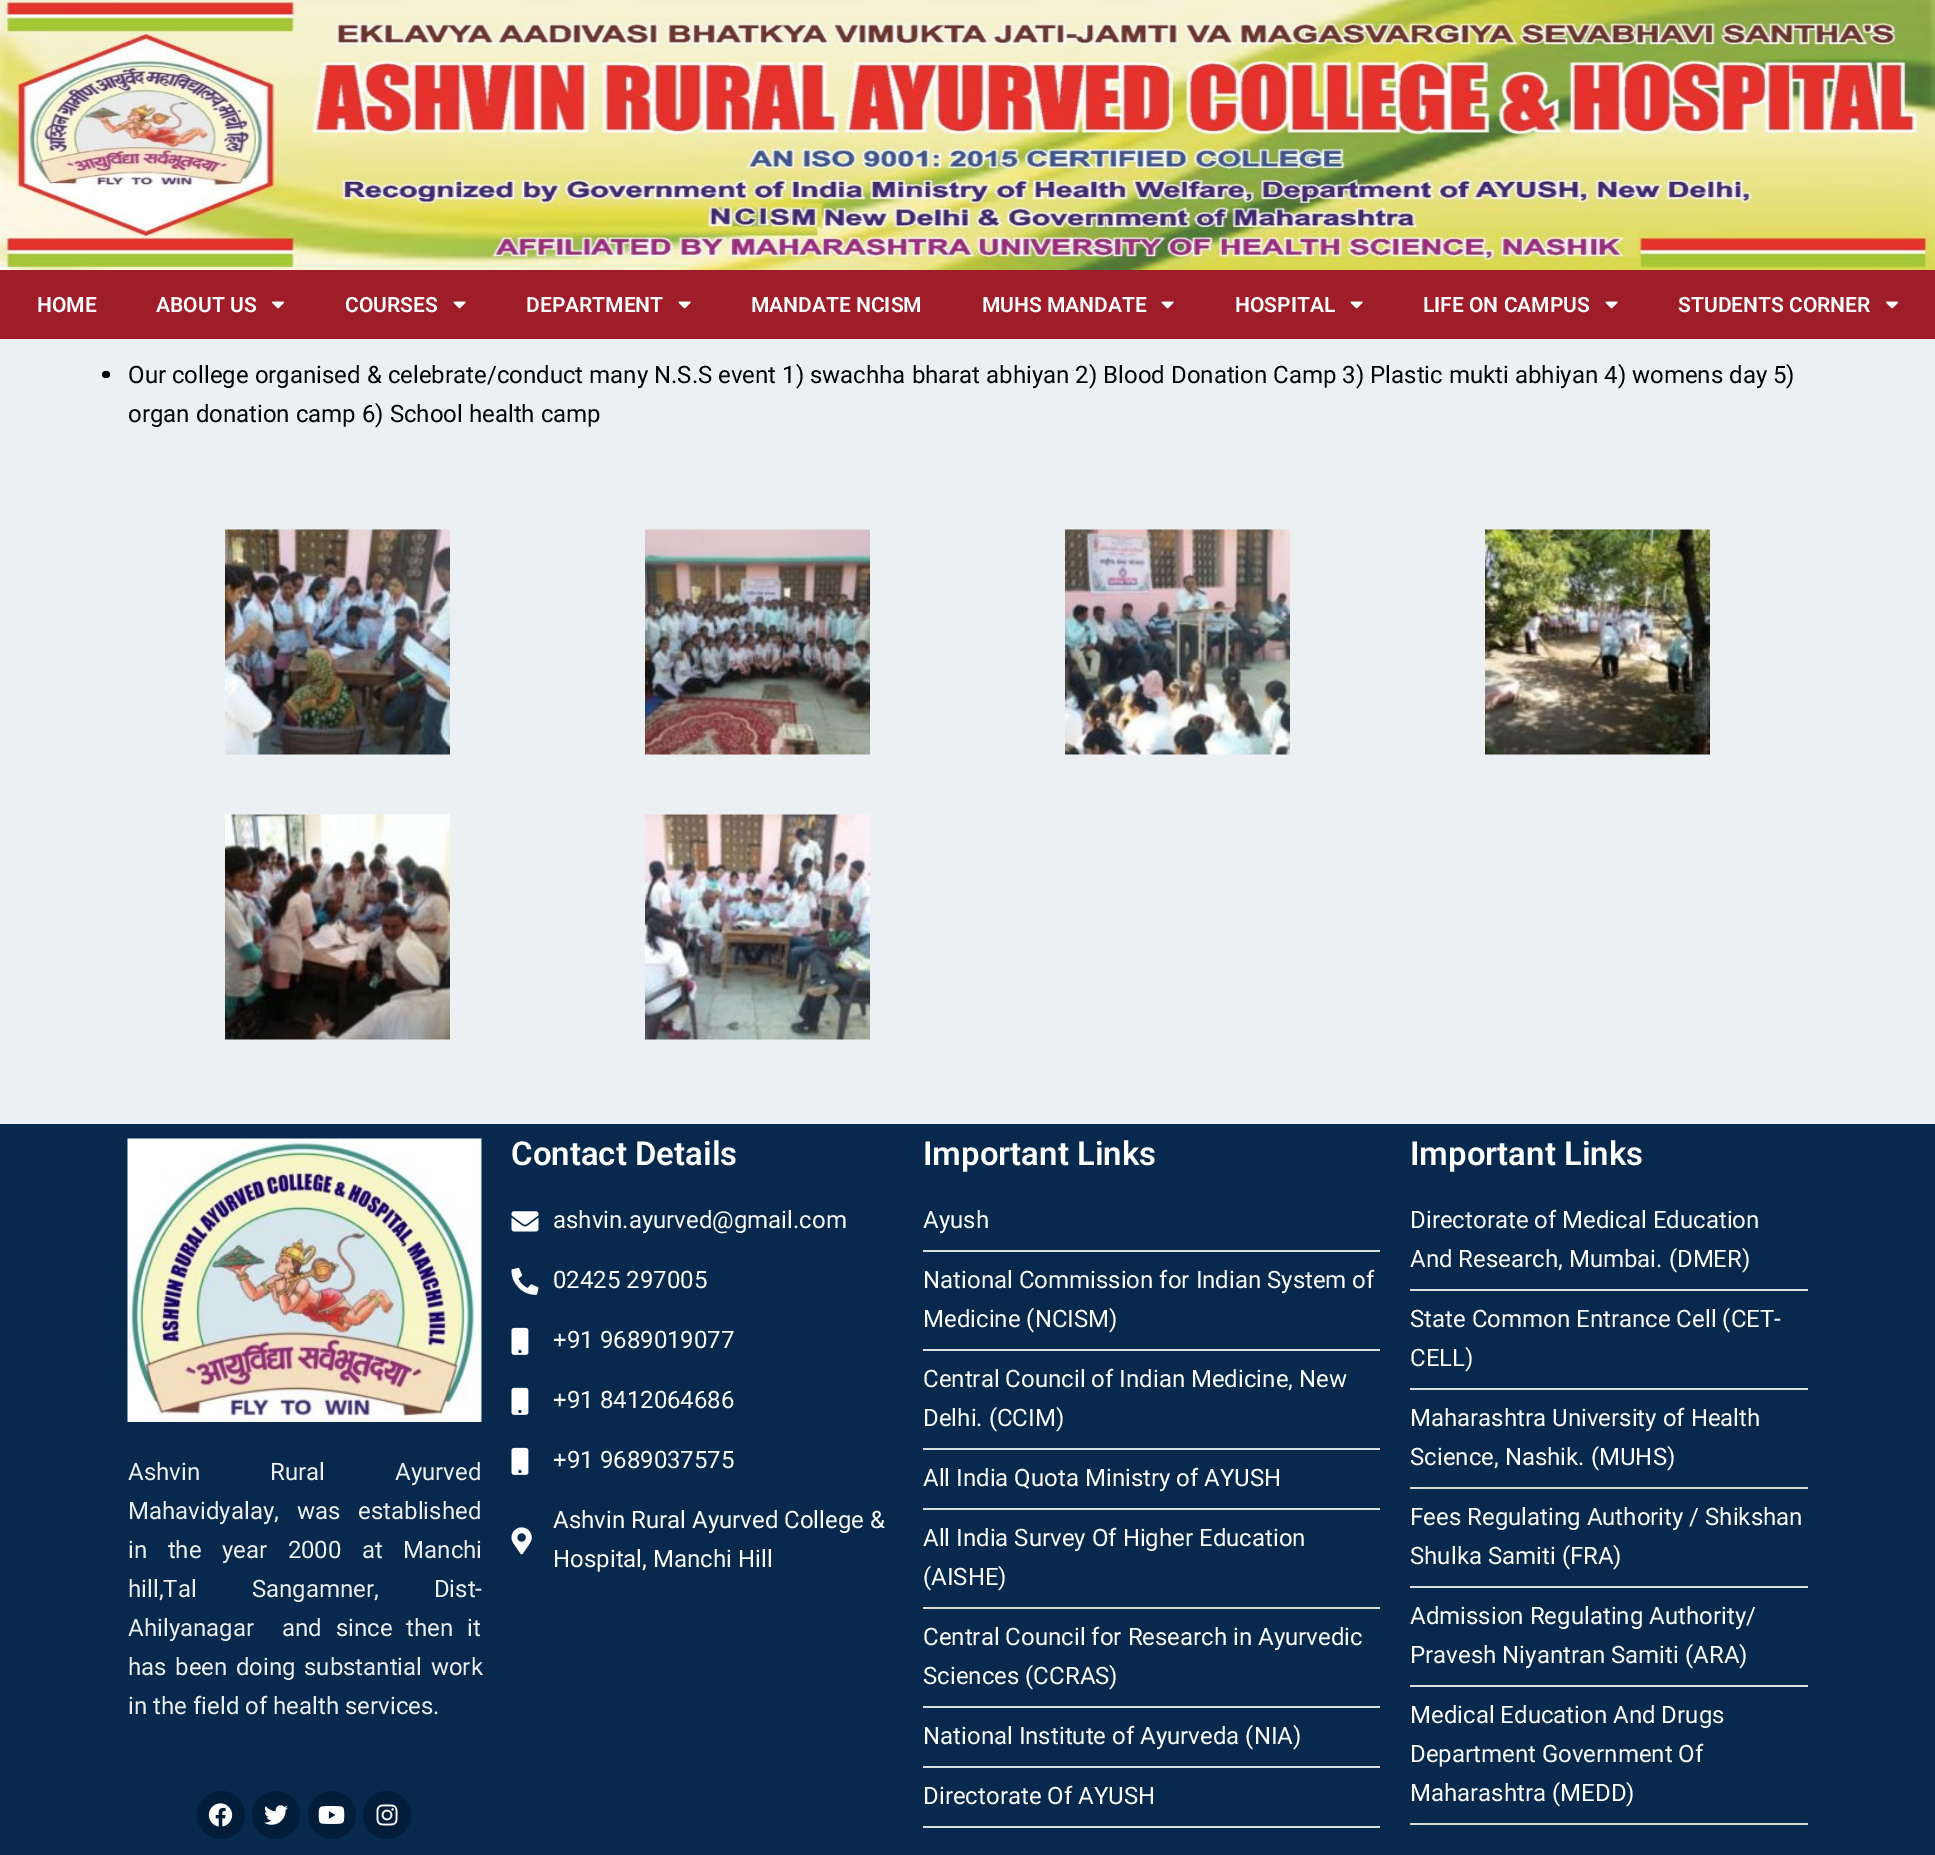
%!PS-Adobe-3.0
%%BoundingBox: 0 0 1935 1855
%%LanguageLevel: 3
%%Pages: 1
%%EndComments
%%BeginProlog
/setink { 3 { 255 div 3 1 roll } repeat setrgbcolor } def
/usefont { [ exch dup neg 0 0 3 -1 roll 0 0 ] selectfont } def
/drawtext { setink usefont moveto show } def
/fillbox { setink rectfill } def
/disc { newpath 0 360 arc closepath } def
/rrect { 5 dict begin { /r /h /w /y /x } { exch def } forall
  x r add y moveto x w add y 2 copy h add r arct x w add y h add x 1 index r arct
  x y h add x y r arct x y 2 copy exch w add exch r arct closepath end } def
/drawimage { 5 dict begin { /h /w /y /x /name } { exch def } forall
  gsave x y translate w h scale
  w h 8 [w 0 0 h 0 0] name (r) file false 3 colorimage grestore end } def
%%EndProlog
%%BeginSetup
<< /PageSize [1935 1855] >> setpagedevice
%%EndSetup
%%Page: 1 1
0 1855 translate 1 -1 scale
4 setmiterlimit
0 0 1935 1855 237 240 242 fillbox
(assets/img1.rgb) 0 0 1935 270 drawimage
0 270 1935 69 158 29 40 fillbox
(HOME) 37 312 /Roboto-SemiBold 21 255 255 255 drawtext
(ABOUT US) 156 312 /Roboto-SemiBold 21 255 255 255 drawtext
(assets/img2.rgb) 272 301 13 8 drawimage
(COURSES) 345 312 /Roboto-SemiBold 21 255 255 255 drawtext
(assets/img3.rgb) 453 301 13 8 drawimage
(DEPARTMENT) 526 312 /Roboto-SemiBold 21 255 255 255 drawtext
(assets/img3.rgb) 678 301 13 8 drawimage
(MANDATE NCISM) 751 312 /Roboto-SemiBold 21 255 255 255 drawtext
(MUHS MANDATE) 982 312 /Roboto-SemiBold 21 255 255 255 drawtext
(assets/img3.rgb) 1161 301 13 8 drawimage
(HOSPITAL) 1235 312 /Roboto-SemiBold 21 255 255 255 drawtext
(assets/img3.rgb) 1350 301 13 8 drawimage
(LIFE ON CAMPUS) 1423 312 /Roboto-SemiBold 21 255 255 255 drawtext
(assets/img3.rgb) 1605 301 13 8 drawimage
(STUDENTS CORNER) 1678 312 /Roboto-SemiBold 21 255 255 255 drawtext
(assets/img2.rgb) 1886 301 13 8 drawimage
0 0 0 setink
102 371 8 7 3.5 rrect fill
(Our college organised & celebrate/conduct many N.S.S event 1\) swachha bharat abhiyan 2\) Blood Donation Camp 3\) Plastic mukti abhiyan 4\) womens day 5\)) 128 383 /Roboto-Regular 24 0 0 0 drawtext
(organ donation camp 6\) School health camp) 128 422 /Roboto-Regular 24 0 0 0 drawtext
(assets/img4.rgb) 225 529 225 226 drawimage
(assets/img5.rgb) 645 529 225 226 drawimage
(assets/img6.rgb) 1065 529 225 226 drawimage
(assets/img7.rgb) 1485 529 225 226 drawimage
(assets/img8.rgb) 225 814 225 226 drawimage
(assets/img9.rgb) 645 814 225 226 drawimage
0 1124 1935 731 7 41 77 fillbox
(assets/img10.rgb) 127 1138 355 284 drawimage
237 240 242 setink
128 1480 moveto 64 0 32 (Ashvin Rural Ayurved) widthshow
128 1519 moveto 12 0 32 (Mahavidyalay, was established) widthshow
128 1558 moveto 14.5 0 32 (in the year 2000 at Manchi) widthshow
128 1597 moveto 49 0 32 (hill,Tal Sangamner, Dist-) widthshow
128 1636 moveto 8 0 32 (Ahilyanagar  and since then it) widthshow
128 1675 moveto 2.5 0 32 (has been doing substantial work) widthshow
(in the field of health services.) 128 1714 /Roboto-Regular 24 237 240 242 drawtext
2 29 58 setink
221 1815 24 disc fill
(assets/img11.rgb) 208 1803 25 24 drawimage
276 1815 24 disc fill
(assets/img12.rgb) 264 1805 24 20 drawimage
332 1815 24 disc fill
(assets/img13.rgb) 318 1806 27 18 drawimage
387 1815 24 disc fill
(assets/img14.rgb) 376 1804 22 22 drawimage
(Contact Details) 511 1165 /Roboto-SemiBold 33 255 255 255 drawtext
(assets/img15.rgb) 511 1211 28 21 drawimage
(ashvin.ayurved@gmail.com) 553 1228 /Roboto-Regular 24 255 255 255 drawtext
(assets/img16.rgb) 511 1267 28 28 drawimage
(02425 297005) 553 1288 /Roboto-Regular 24 255 255 255 drawtext
(assets/img17.rgb) 511 1327 18 28 drawimage
(+91 9689019077) 553 1348 /Roboto-Regular 24 255 255 255 drawtext
(assets/img17.rgb) 511 1387 18 28 drawimage
(+91 8412064686) 553 1408 /Roboto-Regular 24 255 255 255 drawtext
(assets/img17.rgb) 511 1447 18 28 drawimage
(+91 9689037575) 553 1468 /Roboto-Regular 24 255 255 255 drawtext
(assets/img18.rgb) 511 1527 21 28 drawimage
(Ashvin Rural Ayurved College &) 553 1528 /Roboto-Regular 24 255 255 255 drawtext
(Hospital, Manchi Hill) 553 1567 /Roboto-Regular 24 255 255 255 drawtext
(Important Links) 923 1165 /Roboto-SemiBold 33 255 255 255 drawtext
(Ayush) 923 1228 /Roboto-Regular 24 255 255 255 drawtext
923 1250 457 2 221 221 221 fillbox
(National Commission for Indian System of) 923 1288 /Roboto-Regular 24 255 255 255 drawtext
(Medicine \(NCISM\)) 923 1327 /Roboto-Regular 24 255 255 255 drawtext
923 1349 457 2 221 221 221 fillbox
(Central Council of Indian Medicine, New) 923 1387 /Roboto-Regular 24 255 255 255 drawtext
(Delhi. \(CCIM\)) 923 1426 /Roboto-Regular 24 255 255 255 drawtext
923 1448 457 2 221 221 221 fillbox
(All India Quota Ministry of AYUSH) 923 1486 /Roboto-Regular 24 255 255 255 drawtext
923 1508 457 2 221 221 221 fillbox
(All India Survey Of Higher Education) 923 1546 /Roboto-Regular 24 255 255 255 drawtext
(\(AISHE\)) 923 1585 /Roboto-Regular 24 255 255 255 drawtext
923 1607 457 2 221 221 221 fillbox
(Central Council for Research in Ayurvedic) 923 1645 /Roboto-Regular 24 255 255 255 drawtext
(Sciences \(CCRAS\)) 923 1684 /Roboto-Regular 24 255 255 255 drawtext
923 1706 457 2 221 221 221 fillbox
(National Institute of Ayurveda \(NIA\)) 923 1744 /Roboto-Regular 24 255 255 255 drawtext
923 1766 457 2 221 221 221 fillbox
(Directorate Of AYUSH) 923 1804 /Roboto-Regular 24 255 255 255 drawtext
923 1826 457 2 221 221 221 fillbox
(Important Links) 1410 1165 /Roboto-SemiBold 33 255 255 255 drawtext
(Directorate of Medical Education) 1410 1228 /Roboto-Regular 24 255 255 255 drawtext
(And Research, Mumbai. \(DMER\)) 1410 1267 /Roboto-Regular 24 255 255 255 drawtext
1410 1289 398 2 221 221 221 fillbox
(State Common Entrance Cell \(CET-) 1410 1327 /Roboto-Regular 24 255 255 255 drawtext
(CELL\)) 1410 1366 /Roboto-Regular 24 255 255 255 drawtext
1410 1388 398 2 221 221 221 fillbox
(Maharashtra University of Health) 1410 1426 /Roboto-Regular 24 255 255 255 drawtext
(Science, Nashik. \(MUHS\)) 1410 1465 /Roboto-Regular 24 255 255 255 drawtext
1410 1487 398 2 221 221 221 fillbox
(Fees Regulating Authority / Shikshan) 1410 1525 /Roboto-Regular 24 255 255 255 drawtext
(Shulka Samiti \(FRA\)) 1410 1564 /Roboto-Regular 24 255 255 255 drawtext
1410 1586 398 2 221 221 221 fillbox
(Admission Regulating Authority/) 1410 1624 /Roboto-Regular 24 255 255 255 drawtext
(Pravesh Niyantran Samiti \(ARA\)) 1410 1663 /Roboto-Regular 24 255 255 255 drawtext
1410 1685 398 2 221 221 221 fillbox
(Medical Education And Drugs) 1410 1723 /Roboto-Regular 24 255 255 255 drawtext
(Department Government Of) 1410 1762 /Roboto-Regular 24 255 255 255 drawtext
(Maharashtra \(MEDD\)) 1410 1801 /Roboto-Regular 24 255 255 255 drawtext
1410 1823 398 2 221 221 221 fillbox
showpage
%%EOF
